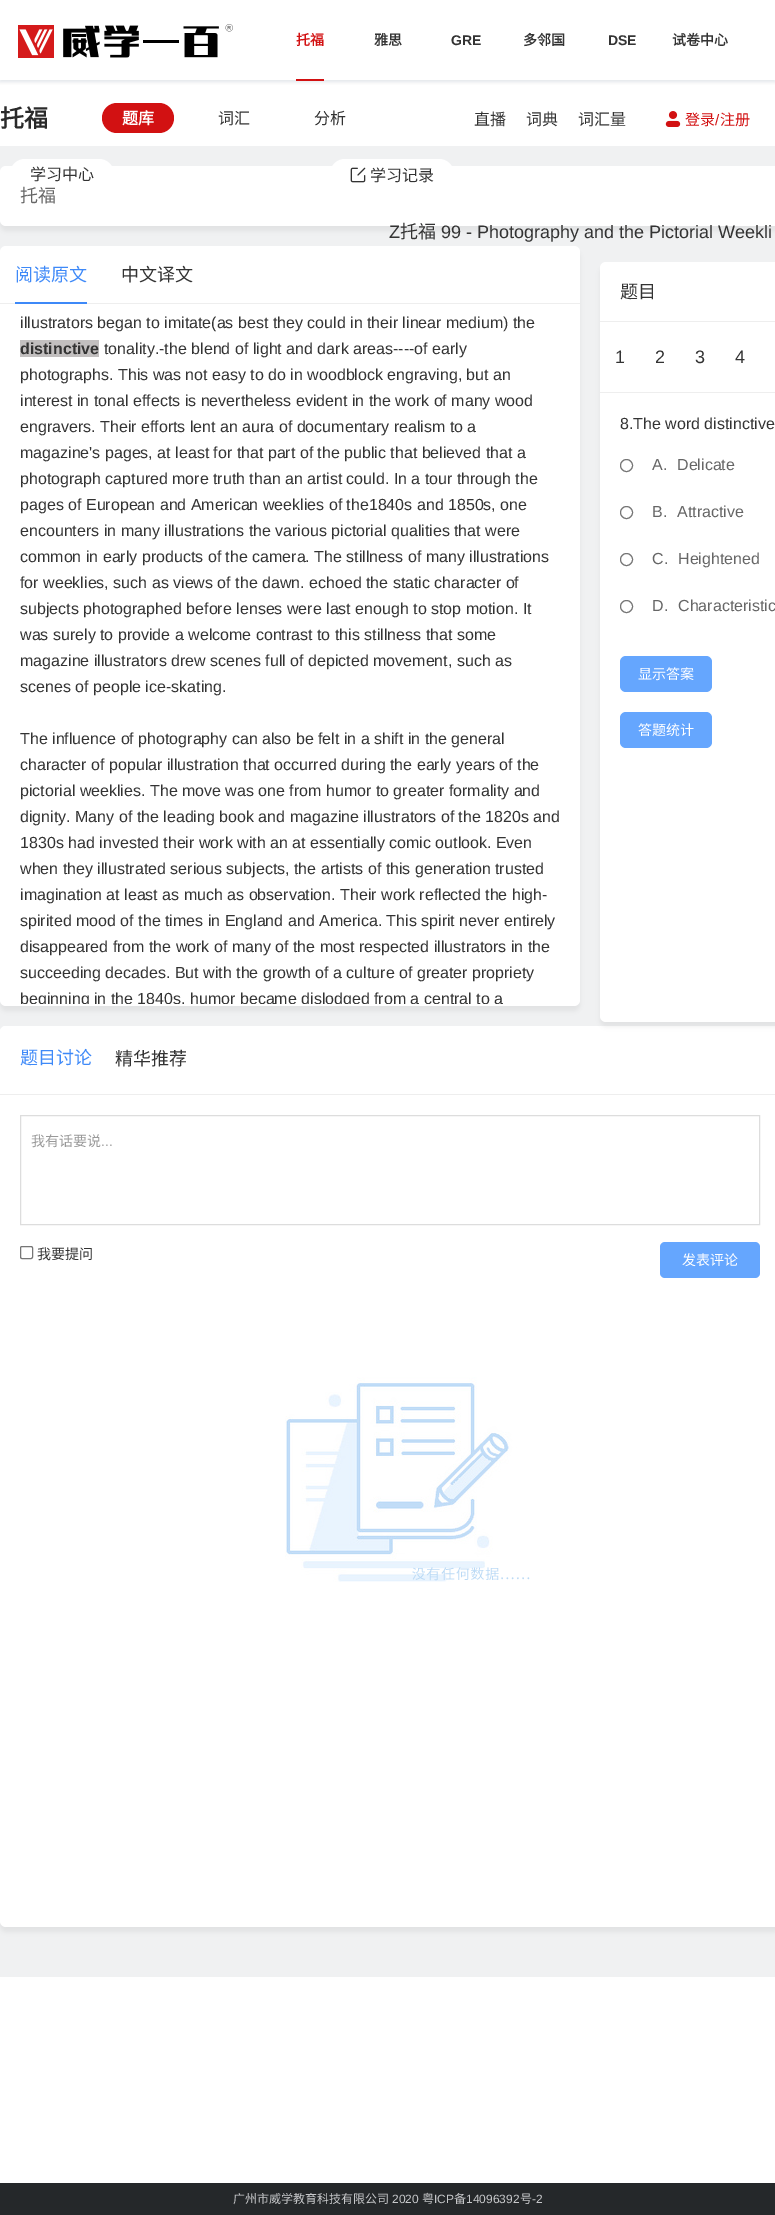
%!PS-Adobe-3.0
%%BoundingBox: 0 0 775 2215
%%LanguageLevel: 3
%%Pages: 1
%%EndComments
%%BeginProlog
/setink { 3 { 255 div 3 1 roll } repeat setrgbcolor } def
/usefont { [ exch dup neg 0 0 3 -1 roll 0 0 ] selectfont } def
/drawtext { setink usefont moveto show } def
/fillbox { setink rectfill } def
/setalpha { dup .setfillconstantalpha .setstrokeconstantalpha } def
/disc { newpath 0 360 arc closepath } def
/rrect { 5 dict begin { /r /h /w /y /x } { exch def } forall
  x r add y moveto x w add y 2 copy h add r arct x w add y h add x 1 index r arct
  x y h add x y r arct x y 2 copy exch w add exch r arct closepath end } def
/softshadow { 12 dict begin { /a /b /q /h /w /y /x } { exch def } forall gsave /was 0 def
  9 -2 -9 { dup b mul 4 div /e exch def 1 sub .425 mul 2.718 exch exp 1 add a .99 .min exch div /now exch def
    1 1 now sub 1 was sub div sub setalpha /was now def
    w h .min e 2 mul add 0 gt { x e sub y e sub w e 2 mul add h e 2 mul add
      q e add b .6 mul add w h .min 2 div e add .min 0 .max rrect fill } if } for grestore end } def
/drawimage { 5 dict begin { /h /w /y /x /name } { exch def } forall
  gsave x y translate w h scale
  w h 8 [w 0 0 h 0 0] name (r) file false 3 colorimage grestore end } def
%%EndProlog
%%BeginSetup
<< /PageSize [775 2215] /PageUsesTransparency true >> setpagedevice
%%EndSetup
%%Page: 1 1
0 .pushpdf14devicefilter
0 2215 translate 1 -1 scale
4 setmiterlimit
0 0 775 2215 255 255 255 fillbox
gsave
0 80 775 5 rectclip
153 165 181 setink
0 2 775 80 0 2 0.3 softshadow
grestore
(assets/img1.rgb) 18 24 215 34 drawimage
296 79 28 2 210 17 18 fillbox
(托福) 296 45 /NotoSansCJKSC-Bold 14 210 17 18 drawtext
(雅思) 374 45 /NotoSansCJKSC-Bold 14 51 51 51 drawtext
(GRE) 451 45 /LiberationSans-Bold 14 51 51 51 drawtext
(多邻国) 523 45 /NotoSansCJKSC-Bold 14 51 51 51 drawtext
(DSE) 608 45 /LiberationSans-Bold 14 51 51 51 drawtext
(试卷中心) 672 45 /NotoSansCJKSC-Bold 14 51 51 51 drawtext
(直播) 474 125 /NotoSansCJKSC-Regular 16 51 51 51 drawtext
(词典) 526 125 /NotoSansCJKSC-Regular 16 51 51 51 drawtext
(词汇量) 578 125 /NotoSansCJKSC-Regular 16 51 51 51 drawtext
(assets/img2.rgb) 665 111 16 16 drawimage
(登录) 685 125 /NotoSansCJKSC-Regular 15 210 17 18 drawtext
(/) 715 125 /LiberationSans-Regular 15 210 17 18 drawtext
(注册) 720 125 /NotoSansCJKSC-Regular 15 210 17 18 drawtext
(托福) 0 127 /NotoSansCJKSC-Bold 24 42 42 42 drawtext
210 17 18 setink
102 103 72 30 15 rrect fill
(题库) 122 124 /NotoSansCJKSC-Bold 16 255 255 255 drawtext
(词汇) 218 124 /NotoSansCJKSC-Regular 16 51 51 51 drawtext
(分析) 314 124 /NotoSansCJKSC-Regular 16 51 51 51 drawtext
0 146 775 1831 240 241 242 fillbox
0 0 0 setink
0 171 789 60 6 2.5 0.05 softshadow
255 255 255 setink
0 166 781 60 6 rrect fill
10 159 104 30 15 rrect fill
(学习中心) 30 180 /NotoSansCJKSC-Regular 16 51 51 51 drawtext
255 255 255 setink
330 159 124 30 15 rrect fill
(assets/img3.rgb) 350 167 16 16 drawimage
(学习记录) 370 181 /NotoSansCJKSC-Regular 16 51 51 51 drawtext
(托福) 20 202 /NotoSansCJKSC-Regular 18 102 102 102 drawtext
(Z) 389 238 /LiberationSans-Regular 18 51 51 51 drawtext
(托福) 400 238 /NotoSansCJKSC-Regular 18 51 51 51 drawtext
(99 - Photography and the Pictorial Weekli) 441 238 /LiberationSans-Regular 18 51 51 51 drawtext
0 0 0 setink
0 251 580 760 6 2.5 0.05 softshadow
255 255 255 setink
0 246 580 760 6 rrect fill
0 303 580 1 238 238 238 fillbox
15 302 72 2 62 137 248 fillbox
(阅读原文) 15 281 /NotoSansCJKSC-Regular 18 62 137 248 drawtext
(中文译文) 121 281 /NotoSansCJKSC-Regular 18 51 51 51 drawtext
(illustrators began to imitate\(as best they could in their linear medium\) the) 20 328 /LiberationSans-Regular 16 51 51 51 drawtext
20 340 79 17 194 191 191 fillbox
(distinctive) 20 354 /LiberationSans-Bold 16 51 51 51 drawtext
(tonality.-the blend of light and dark areas----of early) 104 354 /LiberationSans-Regular 16 51 51 51 drawtext
(photographs. This was not easy to do in woodblock engraving, but an) 20 380 /LiberationSans-Regular 16 51 51 51 drawtext
(interest in tonal effects is nevertheless evident in the work of many wood) 20 406 /LiberationSans-Regular 16 51 51 51 drawtext
(engravers. Their efforts lent an aura of documentary realism to a) 20 432 /LiberationSans-Regular 16 51 51 51 drawtext
(magazine's pages, at least for that part of the public that believed that a) 20 458 /LiberationSans-Regular 16 51 51 51 drawtext
(photograph captured more truth than an artist could. In a tour through the) 20 484 /LiberationSans-Regular 16 51 51 51 drawtext
(pages of European and American weeklies of the1840s and 1850s, one) 20 510 /LiberationSans-Regular 16 51 51 51 drawtext
(encounters in many illustrations the various pictorial qualities that were) 20 536 /LiberationSans-Regular 16 51 51 51 drawtext
(common in early products of the camera. The stillness of many illustrations) 20 562 /LiberationSans-Regular 16 51 51 51 drawtext
(for weeklies, such as views of the dawn. echoed the static character of) 20 588 /LiberationSans-Regular 16 51 51 51 drawtext
(subjects photographed before lenses were last enough to stop motion. It) 20 614 /LiberationSans-Regular 16 51 51 51 drawtext
(was surely to provide a welcome contrast to this stillness that some) 20 640 /LiberationSans-Regular 16 51 51 51 drawtext
(magazine illustrators drew scenes full of depicted movement, such as) 20 666 /LiberationSans-Regular 16 51 51 51 drawtext
(scenes of people ice-skating.) 20 692 /LiberationSans-Regular 16 51 51 51 drawtext
(The influence of photography can also be felt in a shift in the general) 20 744 /LiberationSans-Regular 16 51 51 51 drawtext
(character of popular illustration that occurred during the early years of the) 20 770 /LiberationSans-Regular 16 51 51 51 drawtext
(pictorial weeklies. The move was one from humor to greater formality and) 20 796 /LiberationSans-Regular 16 51 51 51 drawtext
(dignity. Many of the leading book and magazine illustrators of the 1820s and) 20 822 /LiberationSans-Regular 16 51 51 51 drawtext
(1830s had invested their work with an at essentially comic outlook. Even) 20 848 /LiberationSans-Regular 16 51 51 51 drawtext
(when they illustrated serious subjects, the artists of this generation trusted) 20 874 /LiberationSans-Regular 16 51 51 51 drawtext
(imagination at least as much as observation. Their work reflected the high-) 20 900 /LiberationSans-Regular 16 51 51 51 drawtext
(spirited mood of the times in England and America. This spirit never entirely) 20 926 /LiberationSans-Regular 16 51 51 51 drawtext
(disappeared from the work of many of the most respected illustrators in the) 20 952 /LiberationSans-Regular 16 51 51 51 drawtext
(succeeding decades. But with the growth of a culture of greater propriety) 20 978 /LiberationSans-Regular 16 51 51 51 drawtext
gsave
0 304 580 700 rectclip
(beginning in the 1840s, humor became dislodged from a central to a) 20 1004 /LiberationSans-Regular 16 51 51 51 drawtext
grestore
0 0 0 setink
0 1031 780 901 6 2.5 0.05 softshadow
255 255 255 setink
0 1026 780 901 6 rrect fill
0 1026 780 851 6 rrect fill
0 0 0 setink
600 267 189 760 6 2.5 0.05 softshadow
255 255 255 setink
600 262 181 760 6 rrect fill
600 321 175 1 238 238 238 fillbox
(题目) 620 298 /NotoSansCJKSC-Regular 18 51 51 51 drawtext
600 392 175 1 238 238 238 fillbox
(1) 615 363 /LiberationSans-Regular 18 51 51 51 drawtext
(2) 655 363 /LiberationSans-Regular 18 51 51 51 drawtext
(3) 695 363 /LiberationSans-Regular 18 51 51 51 drawtext
(4) 735 363 /LiberationSans-Regular 18 51 51 51 drawtext
(8.The word distinctive) 620 429 /LiberationSans-Regular 16 51 51 51 drawtext
118 118 118 setink
626.5 465.5 6 disc stroke
(A.) 652 470 /LiberationSans-Regular 16 102 102 102 drawtext
(Delicate) 677 470 /LiberationSans-Regular 16 102 102 102 drawtext
118 118 118 setink
626.5 512.5 6 disc stroke
(B.) 652 517 /LiberationSans-Regular 16 102 102 102 drawtext
(Attractive) 677 517 /LiberationSans-Regular 16 102 102 102 drawtext
118 118 118 setink
626.5 559.5 6 disc stroke
(C.) 652 564 /LiberationSans-Regular 16 102 102 102 drawtext
(Heightened) 678 564 /LiberationSans-Regular 16 102 102 102 drawtext
118 118 118 setink
626.5 606.5 6 disc stroke
(D.) 652 611 /LiberationSans-Regular 16 102 102 102 drawtext
(Characteristic) 678 611 /LiberationSans-Regular 16 102 102 102 drawtext
101 166 254 setink
620 656 92 36 6 rrect fill
(显示答案) 638 679 /NotoSansCJKSC-Regular 14 255 255 255 drawtext
101 166 254 setink
620 712 92 36 6 rrect fill
(答题统计) 638 735 /NotoSansCJKSC-Regular 14 255 255 255 drawtext
0 1094 775 1 238 238 238 fillbox
(题目讨论) 20 1064 /NotoSansCJKSC-Regular 18 62 137 248 drawtext
(精华推荐) 115 1065 /NotoSansCJKSC-Regular 18 51 51 51 drawtext
221 221 221 setink
20.5 1115.5 739 109 rectstroke
(我有话要说) 31 1146 /NotoSansCJKSC-Regular 14 153 153 153 drawtext
(...) 101 1146 /LiberationSans-Regular 14 153 153 153 drawtext
118 118 118 setink
20.5 1246.5 12 12 1.5 rrect stroke
(我要提问) 37 1259 /NotoSansCJKSC-Regular 14 51 51 51 drawtext
101 166 254 setink
660 1242 100 36 5 rrect fill
(发表评论) 682 1265 /NotoSansCJKSC-Regular 14 255 255 255 drawtext
(assets/img4.rgb) 285 1377 245 205 drawimage
0 2183 775 32 37 40 42 fillbox
(广州市威学教育科技有限公司) 233 2203 /NotoSansCJKSC-Regular 12 198 199 201 drawtext
(2020) 392 2203 /LiberationSans-Regular 12 198 199 201 drawtext
(粤) 422 2203 /NotoSansCJKSC-Regular 12 198 199 201 drawtext
(ICP) 434 2203 /LiberationSans-Regular 12 198 199 201 drawtext
(备) 454 2203 /NotoSansCJKSC-Regular 12 198 199 201 drawtext
(14096392) 466 2203 /LiberationSans-Regular 12 198 199 201 drawtext
(号) 520 2203 /NotoSansCJKSC-Regular 12 198 199 201 drawtext
(-2) 532 2203 /LiberationSans-Regular 12 198 199 201 drawtext
.poppdf14devicefilter showpage
%%EOF
